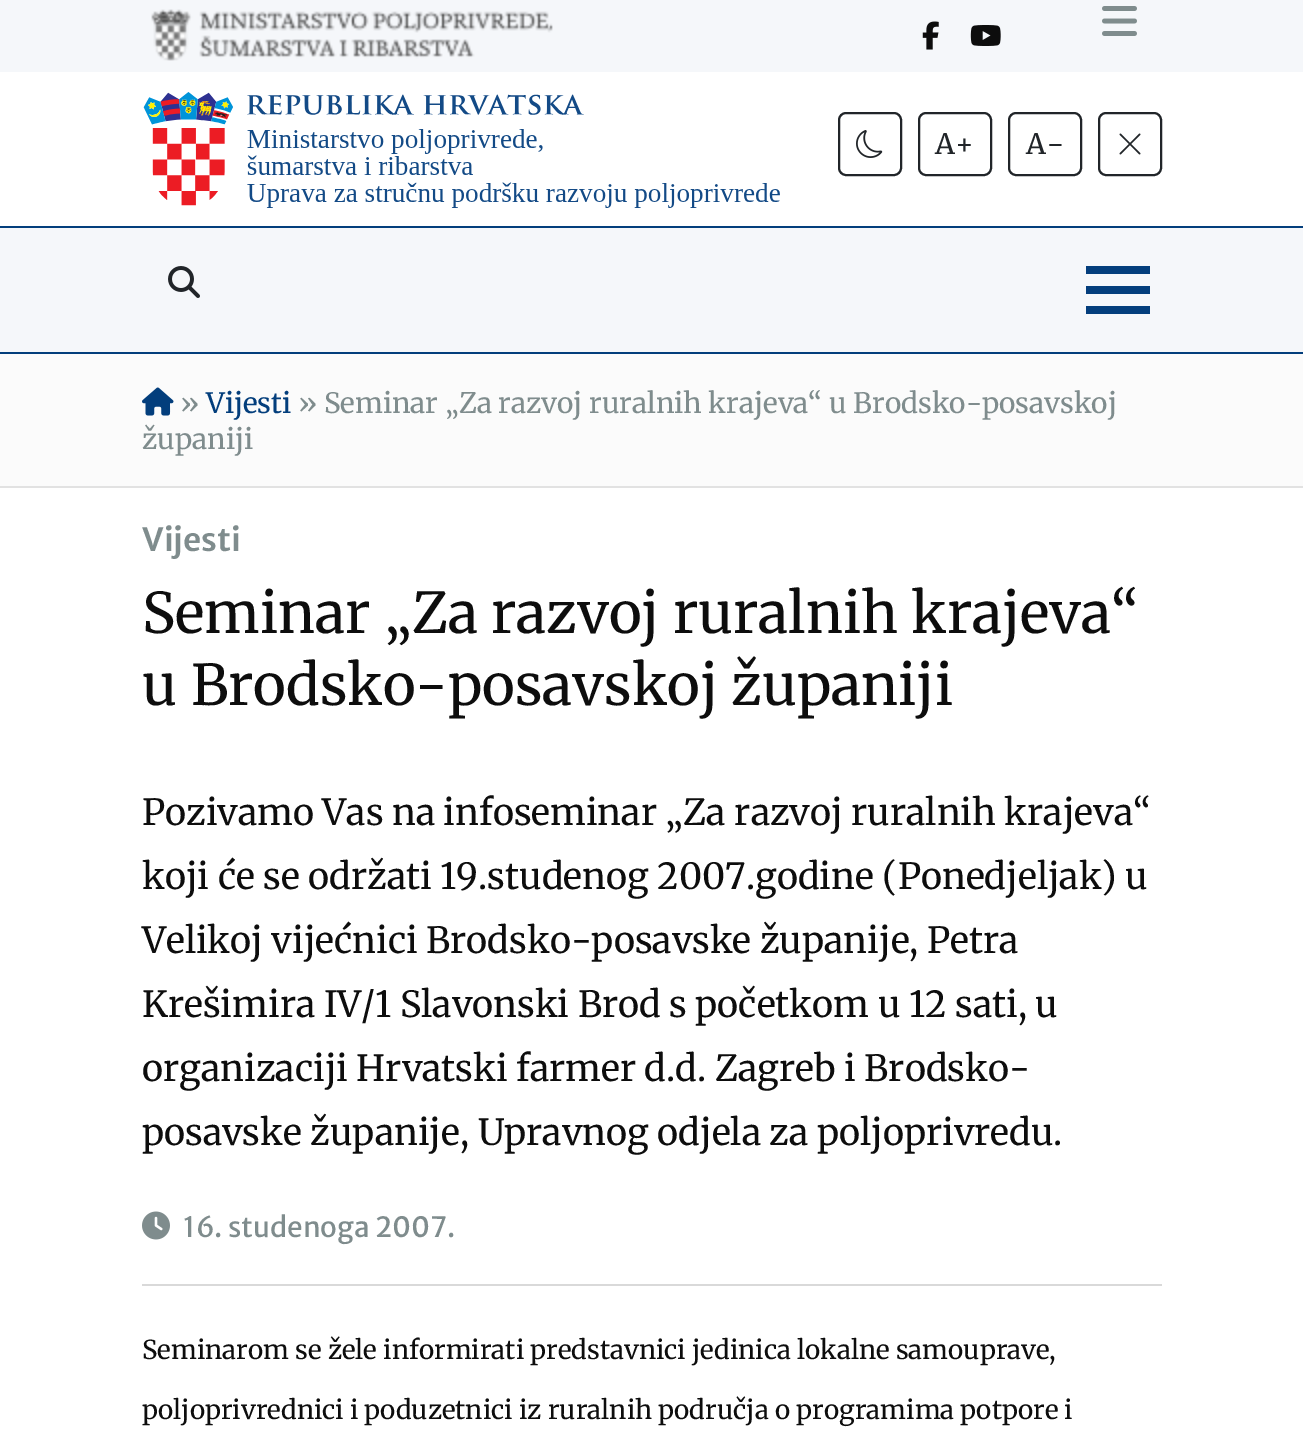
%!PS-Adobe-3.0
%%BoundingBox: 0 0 1303 1443
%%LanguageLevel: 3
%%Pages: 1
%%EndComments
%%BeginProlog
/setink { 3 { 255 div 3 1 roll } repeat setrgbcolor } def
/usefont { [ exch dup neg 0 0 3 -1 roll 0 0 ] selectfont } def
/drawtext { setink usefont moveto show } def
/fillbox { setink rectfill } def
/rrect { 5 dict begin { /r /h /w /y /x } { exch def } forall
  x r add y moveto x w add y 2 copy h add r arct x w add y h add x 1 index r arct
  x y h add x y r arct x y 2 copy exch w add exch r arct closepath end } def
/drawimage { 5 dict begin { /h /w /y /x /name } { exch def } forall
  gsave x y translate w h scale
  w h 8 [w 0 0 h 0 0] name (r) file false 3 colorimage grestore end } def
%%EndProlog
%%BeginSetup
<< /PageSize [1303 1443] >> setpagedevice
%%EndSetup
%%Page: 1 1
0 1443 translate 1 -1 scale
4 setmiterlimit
0 0 1303 1443 255 255 255 fillbox
0 0 1303 72 245 247 250 fillbox
(assets/img1.rgb) 151 9 402 52 drawimage
(assets/img2.rgb) 922 21 17 29 drawimage
(assets/img3.rgb) 970 25 31 21 drawimage
(assets/img4.rgb) 1102 6 35 30 drawimage
(assets/img5.rgb) 143 92 637 116 drawimage
33 37 41 setink
2 setlinewidth
839 113 62 62 7 rrect stroke
(assets/img6.rgb) 856 130 27 28 drawimage
919 113 72 62 7 rrect stroke
(A+) 935 154 /Merriweather-Regular 28 33 37 41 drawtext
1009 113 72 62 7 rrect stroke
(A−) 1026 154 /Merriweather-Regular 28 33 37 41 drawtext
1099 113 62 62 7 rrect stroke
(assets/img7.rgb) 1119 133 22 22 drawimage
0 228 1303 124 245 247 250 fillbox
0 226 1303 2 3 62 124 fillbox
0 352 1303 2 3 62 124 fillbox
(assets/img8.rgb) 168 266 32 32 drawimage
1086 286 64 8 3 62 124 fillbox
1086 266 64 8 3 62 124 fillbox
1086 306 64 8 3 62 124 fillbox
0 354 1303 132 251 251 251 fillbox
0 486 1303 2 226 226 226 fillbox
(assets/img9.rgb) 142 387 32 29 drawimage
(») 180 413 /Merriweather-Regular 28 127 140 141 drawtext
(Vijesti) 206 413 /Merriweather-Regular 28 3 62 124 drawtext
(» Seminar „Za razvoj ruralnih krajeva“ u Brodsko-posavskoj) 298 413 /Merriweather-Regular 28 127 140 141 drawtext
(županiji) 142 449 /Merriweather-Regular 28 127 140 141 drawtext
(Vijesti) 142 551 /MerriweatherSans-SemiBold 32 127 140 141 drawtext
(Seminar „Za razvoj ruralnih krajeva“) 142 633 /Merriweather-Regular 56 13 13 13 drawtext
(u Brodsko-posavskoj županiji) 142 705 /Merriweather-Regular 56 13 13 13 drawtext
(Pozivamo Vas na infoseminar „Za razvoj ruralnih krajeva“) 142 825 /Merriweather-Regular 36 13 13 13 drawtext
(koji će se održati 19.studenog 2007.godine \(Ponedjeljak\) u) 142 889 /Merriweather-Regular 36 13 13 13 drawtext
(Velikoj vijećnici Brodsko-posavske županije, Petra) 142 953 /Merriweather-Regular 36 13 13 13 drawtext
(Krešimira IV/1 Slavonski Brod s početkom u 12 sati, u) 142 1017 /Merriweather-Regular 36 13 13 13 drawtext
(organizaciji Hrvatski farmer d.d. Zagreb i Brodsko-) 142 1081 /Merriweather-Regular 36 13 13 13 drawtext
(posavske županije, Upravnog odjela za poljoprivredu.) 142 1145 /Merriweather-Regular 36 13 13 13 drawtext
142 1284 1020 2 217 217 217 fillbox
(assets/img10.rgb) 142 1211 28 29 drawimage
(16. studenoga 2007.) 183 1237 /MerriweatherSans-Regular 28 127 140 141 drawtext
(Seminarom se žele informirati predstavnici jedinica lokalne samouprave,) 142 1359 /Merriweather-Regular 26 13 13 13 drawtext
(poljoprivrednici i poduzetnici iz ruralnih područja o programima potpore i) 142 1419 /Merriweather-Regular 26 13 13 13 drawtext
showpage
%%EOF
